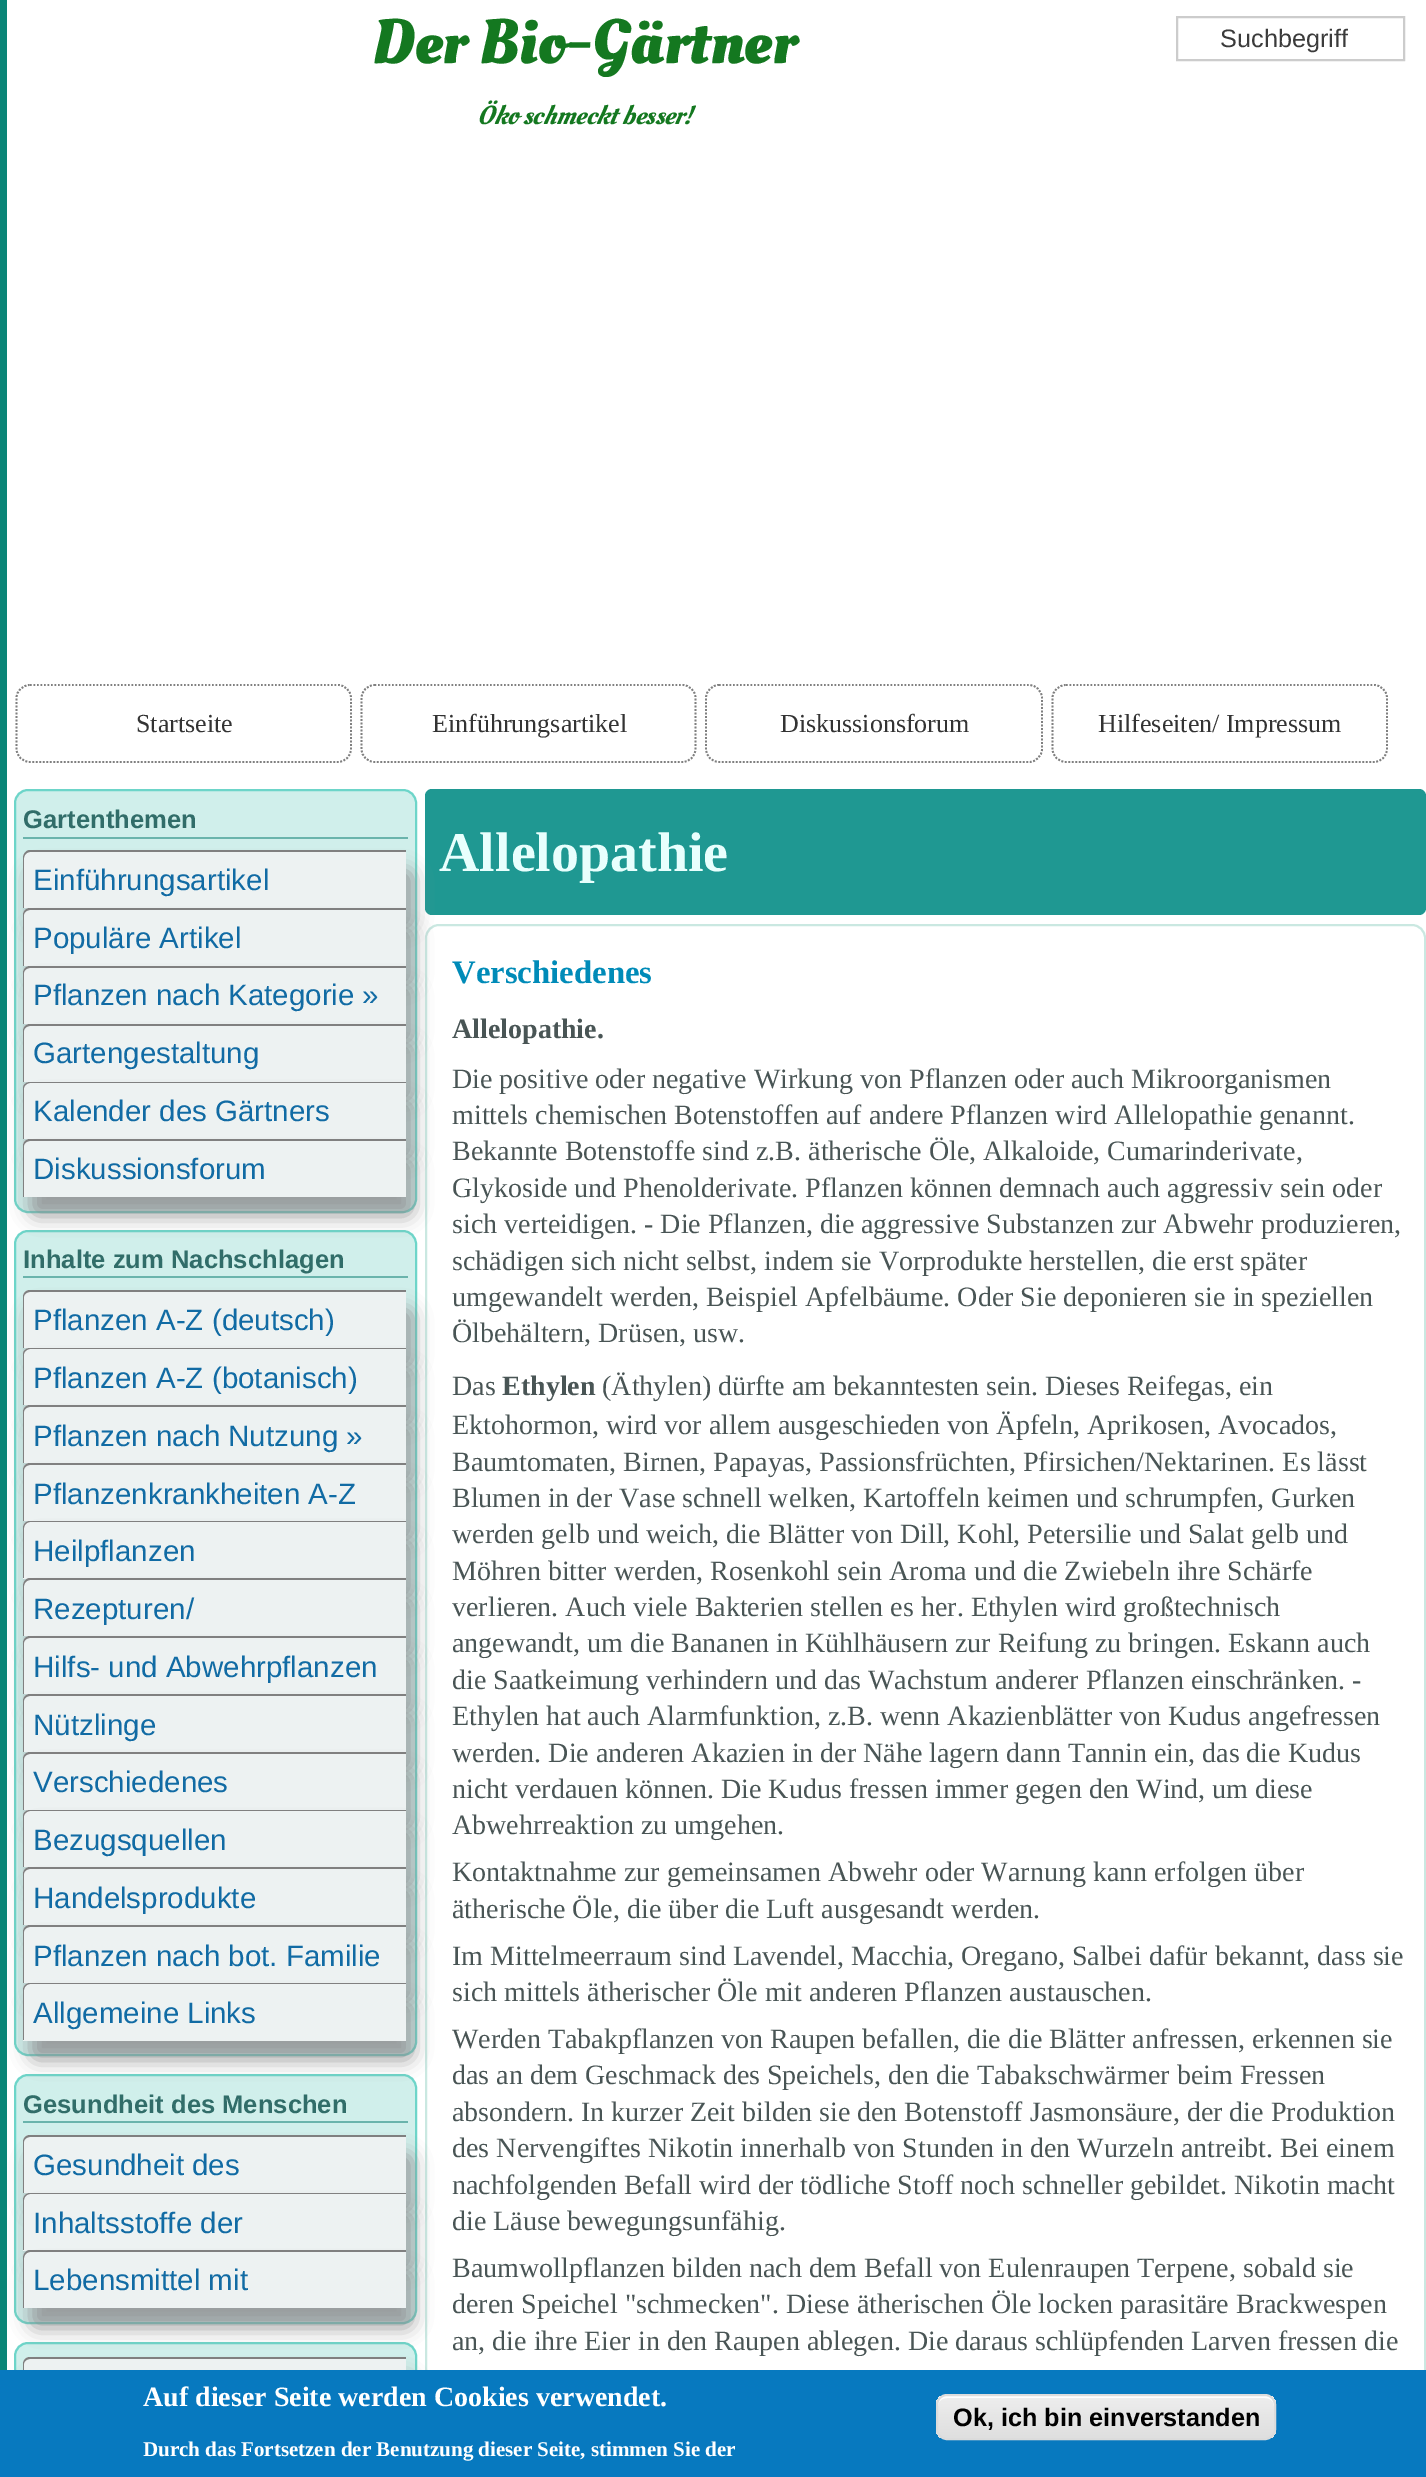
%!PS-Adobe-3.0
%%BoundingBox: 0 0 1426 2477
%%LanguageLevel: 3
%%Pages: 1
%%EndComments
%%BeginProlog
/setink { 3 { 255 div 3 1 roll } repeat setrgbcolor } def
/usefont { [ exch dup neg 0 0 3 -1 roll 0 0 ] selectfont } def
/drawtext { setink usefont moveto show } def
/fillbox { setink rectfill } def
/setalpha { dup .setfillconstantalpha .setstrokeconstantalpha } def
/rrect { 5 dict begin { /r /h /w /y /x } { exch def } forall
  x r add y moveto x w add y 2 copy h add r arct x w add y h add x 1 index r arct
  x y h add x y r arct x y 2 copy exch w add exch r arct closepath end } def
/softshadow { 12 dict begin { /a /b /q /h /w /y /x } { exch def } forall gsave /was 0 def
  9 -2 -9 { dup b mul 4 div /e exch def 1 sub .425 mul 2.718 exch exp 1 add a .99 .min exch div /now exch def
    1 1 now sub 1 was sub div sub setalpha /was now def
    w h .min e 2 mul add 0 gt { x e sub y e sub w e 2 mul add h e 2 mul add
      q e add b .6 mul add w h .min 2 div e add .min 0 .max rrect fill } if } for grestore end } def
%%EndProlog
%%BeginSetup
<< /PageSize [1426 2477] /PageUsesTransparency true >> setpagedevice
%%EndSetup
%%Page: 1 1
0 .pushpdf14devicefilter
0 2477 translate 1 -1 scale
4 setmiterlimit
0 0 1426 2477 10 133 119 fillbox
7 0 1419 2370 255 255 255 fillbox
(Der Bio-Gärtner) 372 63 /OleoScript-Bold 62.75 20 120 32 drawtext
(Öko schmeckt besser!) 477 124 /OleoScript-Italic 26.25 20 120 32 drawtext
204 204 204 setink
2 setlinewidth
1177 17 227 43 rectstroke
(Suchbegriff) 1220 47 /LiberationSans-Regular 25.25 59 59 59 drawtext
128 128 128 setink
1.8 setlinewidth
[1.75 1.75] 0 setdash
30 685 moveto 338 685 lineto 345 685 351 691 351 698 curveto 351 749 lineto 351 756 345 762 338 762 curveto 30 762 lineto 22.5 762 16.5 756 16.5 749 curveto 16.5 698 lineto 16.5 691 22.5 685 30 685 curveto closepath stroke
(Startseite) 136 732 /LiberationSerif-Regular 26 51 51 51 drawtext
128 128 128 setink
374.5 685 moveto 682.5 685 lineto 689.5 685 695.5 691 695.5 698 curveto 695.5 749 lineto 695.5 756 689.5 762 682.5 762 curveto 374.5 762 lineto 367.5 762 361.5 756 361.5 749 curveto 361.5 698 lineto 361.5 691 367.5 685 374.5 685 curveto closepath stroke
(Einführungsartikel) 432 732 /LiberationSerif-Regular 26 51 51 51 drawtext
128 128 128 setink
719 685 moveto 1029 685 lineto 1036 685 1042 691 1042 698 curveto 1042 749 lineto 1042 756 1036 762 1029 762 curveto 719 762 lineto 712 762 706 756 706 749 curveto 706 698 lineto 706 691 712 685 719 685 curveto closepath stroke
(Diskussionsforum) 780 732 /LiberationSerif-Regular 26 51 51 51 drawtext
128 128 128 setink
1066 685 moveto 1374 685 lineto 1381 685 1387 691 1387 698 curveto 1387 749 lineto 1387 756 1381 762 1374 762 curveto 1066 762 lineto 1058.5 762 1052.5 756 1052.5 749 curveto 1052.5 698 lineto 1052.5 691 1058.5 685 1066 685 curveto closepath stroke
(Hilfeseiten/ Impressum) 1098 732 /LiberationSerif-Regular 26 51 51 51 drawtext
208 239 235 setink
15 790 401 422 13 rrect gsave fill grestore
109 213 201 setink
2 setlinewidth
[] 0 setdash
stroke
23 837 385 2 106 180 172 fillbox
(Gartenthemen) 23 828 /LiberationSans-Bold 25.6 49 109 105 drawtext
31 152 146 setink
425 789 1001 126 7 rrect fill
202 232 225 setink
426 925 999 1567 13 rrect stroke
138 136 138 setink
30 870 383 58 7 9.5 0.8 softshadow
237 242 242 setink
30 851 moveto 406 851 lineto 406 908 lineto 23 908 lineto 23 858 lineto 23 854 26 851 30 851 curveto closepath fill
128 128 128 setink
30 850 moveto 406 850 lineto 406 908 lineto 23 908 lineto 23 858 lineto 23 854 26 850 30 850 curveto closepath 30 852 moveto 406 852 lineto 406 908 lineto 24 908 lineto 24 858 lineto 24 855 27 852 30 852 curveto closepath eofill
(Einführungsartikel) 33 890 /LiberationSans-Regular 29.5 17 107 164 drawtext
138 136 138 setink
30 928 383 57 7 9.5 0.8 softshadow
237 242 242 setink
30 908 moveto 406 908 lineto 406 966 lineto 23 966 lineto 23 915 lineto 23 911 26 908 30 908 curveto closepath fill
128 128 128 setink
30 908 moveto 406 908 lineto 406 966 lineto 23 966 lineto 23 915 lineto 23 911 26 908 30 908 curveto closepath 30 910 moveto 406 910 lineto 406 966 lineto 24 966 lineto 24 915 lineto 24 912 27 910 30 910 curveto closepath eofill
(Populäre Artikel) 33 948 /LiberationSans-Regular 29.5 17 107 164 drawtext
138 136 138 setink
30 985 383 58 7 9.5 0.8 softshadow
237 242 242 setink
30 966 moveto 406 966 lineto 406 1024 lineto 23 1024 lineto 23 973 lineto 23 969 26 966 30 966 curveto closepath fill
128 128 128 setink
30 966 moveto 406 966 lineto 406 1024 lineto 23 1024 lineto 23 973 lineto 23 969 26 966 30 966 curveto closepath 30 968 moveto 406 968 lineto 406 1024 lineto 24 1024 lineto 24 973 lineto 24 970 27 968 30 968 curveto closepath eofill
(Pflanzen nach Kategorie) 33 1005 /LiberationSans-Regular 29.5 17 107 164 drawtext
(») 362 1005 /LiberationSans-Regular 29.5 17 107 164 drawtext
138 136 138 setink
30 1043 383 58 7 9.5 0.8 softshadow
237 242 242 setink
30 1024 moveto 406 1024 lineto 406 1082 lineto 23 1082 lineto 23 1031 lineto 23 1027 26 1024 30 1024 curveto closepath fill
128 128 128 setink
30 1024 moveto 406 1024 lineto 406 1082 lineto 23 1082 lineto 23 1031 lineto 23 1027 26 1024 30 1024 curveto closepath 30 1026 moveto 406 1026 lineto 406 1082 lineto 24 1082 lineto 24 1031 lineto 24 1028 27 1026 30 1026 curveto closepath eofill
(Gartengestaltung) 33 1063 /LiberationSans-Regular 29.5 17 107 164 drawtext
138 136 138 setink
30 1101 383 58 7 9.5 0.8 softshadow
237 242 242 setink
30 1082 moveto 406 1082 lineto 406 1139 lineto 23 1139 lineto 23 1089 lineto 23 1085 26 1082 30 1082 curveto closepath fill
128 128 128 setink
30 1082 moveto 406 1082 lineto 406 1139 lineto 23 1139 lineto 23 1088 lineto 23 1085 26 1082 30 1082 curveto closepath 30 1083 moveto 406 1083 lineto 406 1139 lineto 24 1139 lineto 24 1088 lineto 24 1086 27 1083 30 1083 curveto closepath eofill
(Kalender des Gärtners) 33 1121 /LiberationSans-Regular 29.5 17 107 164 drawtext
208 239 235 setink
15 1231 401 824 13 rrect gsave fill grestore
109 213 201 setink
stroke
138 136 138 setink
30 1159 383 57 7 9.5 0.8 softshadow
237 242 242 setink
30 1139 moveto 406 1139 lineto 406 1197 lineto 23 1197 lineto 23 1146 lineto 23 1142 26 1139 30 1139 curveto closepath fill
128 128 128 setink
30 1139 moveto 406 1139 lineto 406 1197 lineto 23 1197 lineto 23 1146 lineto 23 1142 26 1139 30 1139 curveto closepath 30 1141 moveto 406 1141 lineto 406 1197 lineto 24 1197 lineto 24 1146 lineto 24 1143 27 1141 30 1141 curveto closepath eofill
(Diskussionsforum) 33 1179 /LiberationSans-Regular 29.5 17 107 164 drawtext
23 1276 385 2 106 180 172 fillbox
(Inhalte zum Nachschlagen) 23 1268 /LiberationSans-Bold 25.6 49 109 105 drawtext
138 136 138 setink
30 1309 383 58 7 9.5 0.8 softshadow
237 242 242 setink
30 1290 moveto 406 1290 lineto 406 1348 lineto 23 1348 lineto 23 1297 lineto 23 1293 26 1290 30 1290 curveto closepath fill
128 128 128 setink
30 1290 moveto 406 1290 lineto 406 1348 lineto 23 1348 lineto 23 1297 lineto 23 1293 26 1290 30 1290 curveto closepath 30 1292 moveto 406 1292 lineto 406 1348 lineto 24 1348 lineto 24 1297 lineto 24 1294 27 1292 30 1292 curveto closepath eofill
(Pflanzen A-Z \(deutsch\)) 33 1330 /LiberationSans-Regular 29.5 17 107 164 drawtext
138 136 138 setink
30 1367 383 58 7 9.5 0.8 softshadow
237 242 242 setink
30 1348 moveto 406 1348 lineto 406 1405 lineto 23 1405 lineto 23 1355 lineto 23 1351 26 1348 30 1348 curveto closepath fill
128 128 128 setink
30 1348 moveto 406 1348 lineto 406 1405 lineto 23 1405 lineto 23 1354 lineto 23 1351 26 1348 30 1348 curveto closepath 30 1349 moveto 406 1349 lineto 406 1405 lineto 24 1405 lineto 24 1354 lineto 24 1352 27 1349 30 1349 curveto closepath eofill
(Pflanzen A-Z \(botanisch\)) 33 1388 /LiberationSans-Regular 29.5 17 107 164 drawtext
138 136 138 setink
30 1425 383 57 7 9.5 0.8 softshadow
237 242 242 setink
30 1405 moveto 406 1405 lineto 406 1463 lineto 23 1463 lineto 23 1412 lineto 23 1408 26 1405 30 1405 curveto closepath fill
128 128 128 setink
30 1405 moveto 406 1405 lineto 406 1463 lineto 23 1463 lineto 23 1412 lineto 23 1408 26 1405 30 1405 curveto closepath 30 1407 moveto 406 1407 lineto 406 1463 lineto 24 1463 lineto 24 1412 lineto 24 1409 27 1407 30 1407 curveto closepath eofill
(Pflanzen nach Nutzung) 33 1446 /LiberationSans-Regular 29.5 17 107 164 drawtext
(») 346 1446 /LiberationSans-Regular 29.5 17 107 164 drawtext
138 136 138 setink
30 1482 383 58 7 9.5 0.8 softshadow
237 242 242 setink
30 1463 moveto 406 1463 lineto 406 1521 lineto 23 1521 lineto 23 1470 lineto 23 1466 26 1463 30 1463 curveto closepath fill
128 128 128 setink
30 1463 moveto 406 1463 lineto 406 1521 lineto 23 1521 lineto 23 1470 lineto 23 1466 26 1463 30 1463 curveto closepath 30 1465 moveto 406 1465 lineto 406 1521 lineto 24 1521 lineto 24 1470 lineto 24 1467 27 1465 30 1465 curveto closepath eofill
(Pflanzenkrankheiten A-Z) 33 1504 /LiberationSans-Regular 29.5 17 107 164 drawtext
138 136 138 setink
30 1540 383 58 7 9.5 0.8 softshadow
237 242 242 setink
30 1521 moveto 406 1521 lineto 406 1579 lineto 23 1579 lineto 23 1528 lineto 23 1524 26 1521 30 1521 curveto closepath fill
128 128 128 setink
30 1521 moveto 406 1521 lineto 406 1578 lineto 23 1578 lineto 23 1528 lineto 23 1524 26 1521 30 1521 curveto closepath 30 1522 moveto 406 1522 lineto 406 1578 lineto 24 1578 lineto 24 1528 lineto 24 1525 27 1522 30 1522 curveto closepath eofill
(Heilpflanzen) 33 1561 /LiberationSans-Regular 29.5 17 107 164 drawtext
138 136 138 setink
30 1598 383 58 7 9.5 0.8 softshadow
237 242 242 setink
30 1579 moveto 406 1579 lineto 406 1636 lineto 23 1636 lineto 23 1586 lineto 23 1582 26 1579 30 1579 curveto closepath fill
128 128 128 setink
30 1578 moveto 406 1578 lineto 406 1636 lineto 23 1636 lineto 23 1586 lineto 23 1582 26 1578 30 1578 curveto closepath 30 1580 moveto 406 1580 lineto 406 1636 lineto 24 1636 lineto 24 1586 lineto 24 1583 27 1580 30 1580 curveto closepath eofill
(Rezepturen/) 33 1619 /LiberationSans-Regular 29.5 17 107 164 drawtext
138 136 138 setink
30 1656 383 57 7 9.5 0.8 softshadow
237 242 242 setink
30 1636 moveto 406 1636 lineto 406 1694 lineto 23 1694 lineto 23 1643 lineto 23 1639 26 1636 30 1636 curveto closepath fill
128 128 128 setink
30 1636 moveto 406 1636 lineto 406 1694 lineto 23 1694 lineto 23 1643 lineto 23 1639 26 1636 30 1636 curveto closepath 30 1638 moveto 406 1638 lineto 406 1694 lineto 24 1694 lineto 24 1643 lineto 24 1640 27 1638 30 1638 curveto closepath eofill
(Hilfs- und Abwehrpflanzen) 33 1677 /LiberationSans-Regular 29.5 17 107 164 drawtext
138 136 138 setink
30 1713 383 58 7 9.5 0.8 softshadow
237 242 242 setink
30 1694 moveto 406 1694 lineto 406 1752 lineto 23 1752 lineto 23 1701 lineto 23 1697 26 1694 30 1694 curveto closepath fill
128 128 128 setink
30 1694 moveto 406 1694 lineto 406 1752 lineto 23 1752 lineto 23 1701 lineto 23 1697 26 1694 30 1694 curveto closepath 30 1696 moveto 406 1696 lineto 406 1752 lineto 24 1752 lineto 24 1701 lineto 24 1698 27 1696 30 1696 curveto closepath eofill
(Nützlinge) 33 1735 /LiberationSans-Regular 29.5 17 107 164 drawtext
138 136 138 setink
30 1771 383 58 7 9.5 0.8 softshadow
237 242 242 setink
30 1752 moveto 406 1752 lineto 406 1810 lineto 23 1810 lineto 23 1759 lineto 23 1755 26 1752 30 1752 curveto closepath fill
128 128 128 setink
30 1752 moveto 406 1752 lineto 406 1810 lineto 23 1810 lineto 23 1759 lineto 23 1755 26 1752 30 1752 curveto closepath 30 1754 moveto 406 1754 lineto 406 1810 lineto 24 1810 lineto 24 1759 lineto 24 1756 27 1754 30 1754 curveto closepath eofill
(Verschiedenes) 33 1792 /LiberationSans-Regular 29.5 17 107 164 drawtext
138 136 138 setink
30 1829 383 58 7 9.5 0.8 softshadow
237 242 242 setink
30 1810 moveto 406 1810 lineto 406 1867 lineto 23 1867 lineto 23 1817 lineto 23 1813 26 1810 30 1810 curveto closepath fill
128 128 128 setink
30 1810 moveto 406 1810 lineto 406 1867 lineto 23 1867 lineto 23 1816 lineto 23 1813 26 1810 30 1810 curveto closepath 30 1811 moveto 406 1811 lineto 406 1867 lineto 24 1867 lineto 24 1816 lineto 24 1814 27 1811 30 1811 curveto closepath eofill
(Bezugsquellen) 33 1850 /LiberationSans-Regular 29.5 17 107 164 drawtext
138 136 138 setink
30 1887 383 57 7 9.5 0.8 softshadow
237 242 242 setink
30 1867 moveto 406 1867 lineto 406 1925 lineto 23 1925 lineto 23 1874 lineto 23 1870 26 1867 30 1867 curveto closepath fill
128 128 128 setink
30 1867 moveto 406 1867 lineto 406 1925 lineto 23 1925 lineto 23 1874 lineto 23 1870 26 1867 30 1867 curveto closepath 30 1869 moveto 406 1869 lineto 406 1925 lineto 24 1925 lineto 24 1874 lineto 24 1871 27 1869 30 1869 curveto closepath eofill
(Handelsprodukte) 33 1908 /LiberationSans-Regular 29.5 17 107 164 drawtext
138 136 138 setink
30 1944 383 58 7 9.5 0.8 softshadow
237 242 242 setink
30 1925 moveto 406 1925 lineto 406 1983 lineto 23 1983 lineto 23 1932 lineto 23 1928 26 1925 30 1925 curveto closepath fill
128 128 128 setink
30 1925 moveto 406 1925 lineto 406 1983 lineto 23 1983 lineto 23 1932 lineto 23 1928 26 1925 30 1925 curveto closepath 30 1927 moveto 406 1927 lineto 406 1983 lineto 24 1983 lineto 24 1932 lineto 24 1929 27 1927 30 1927 curveto closepath eofill
(Pflanzen nach bot. Familie) 33 1966 /LiberationSans-Regular 29.5 17 107 164 drawtext
208 239 235 setink
15 2075 401 248 13 rrect gsave fill grestore
109 213 201 setink
stroke
138 136 138 setink
30 2002 383 58 7 9.5 0.8 softshadow
237 242 242 setink
30 1983 moveto 406 1983 lineto 406 2041 lineto 23 2041 lineto 23 1990 lineto 23 1986 26 1983 30 1983 curveto closepath fill
128 128 128 setink
30 1983 moveto 406 1983 lineto 406 2040 lineto 23 2040 lineto 23 1990 lineto 23 1986 26 1983 30 1983 curveto closepath 30 1984 moveto 406 1984 lineto 406 2040 lineto 24 2040 lineto 24 1990 lineto 24 1987 27 1984 30 1984 curveto closepath eofill
(Allgemeine Links) 33 2023 /LiberationSans-Regular 29.5 17 107 164 drawtext
23 2121 385 2 106 180 172 fillbox
(Gesundheit des Menschen) 23 2113 /LiberationSans-Bold 25.6 49 109 105 drawtext
138 136 138 setink
30 2154 383 58 7 9.5 0.8 softshadow
237 242 242 setink
30 2135 moveto 406 2135 lineto 406 2193 lineto 23 2193 lineto 23 2142 lineto 23 2138 26 2135 30 2135 curveto closepath fill
128 128 128 setink
30 2135 moveto 406 2135 lineto 406 2193 lineto 23 2193 lineto 23 2142 lineto 23 2138 26 2135 30 2135 curveto closepath 30 2137 moveto 406 2137 lineto 406 2193 lineto 24 2193 lineto 24 2142 lineto 24 2139 27 2137 30 2137 curveto closepath eofill
(Gesundheit des) 33 2175 /LiberationSans-Regular 29.5 17 107 164 drawtext
138 136 138 setink
30 2212 383 58 7 9.5 0.8 softshadow
237 242 242 setink
30 2193 moveto 406 2193 lineto 406 2251 lineto 23 2251 lineto 23 2200 lineto 23 2196 26 2193 30 2193 curveto closepath fill
128 128 128 setink
30 2193 moveto 406 2193 lineto 406 2250 lineto 23 2250 lineto 23 2200 lineto 23 2196 26 2193 30 2193 curveto closepath 30 2194 moveto 406 2194 lineto 406 2250 lineto 24 2250 lineto 24 2200 lineto 24 2197 27 2194 30 2194 curveto closepath eofill
(Inhaltsstoffe der) 33 2233 /LiberationSans-Regular 29.5 17 107 164 drawtext
208 239 235 setink
15 2343 401 87 13 rrect gsave fill grestore
109 213 201 setink
stroke
138 136 138 setink
30 2270 383 58 7 9.5 0.8 softshadow
237 242 242 setink
30 2251 moveto 406 2251 lineto 406 2308 lineto 23 2308 lineto 23 2258 lineto 23 2254 26 2251 30 2251 curveto closepath fill
128 128 128 setink
30 2250 moveto 406 2250 lineto 406 2308 lineto 23 2308 lineto 23 2258 lineto 23 2254 26 2250 30 2250 curveto closepath 30 2252 moveto 406 2252 lineto 406 2308 lineto 24 2308 lineto 24 2258 lineto 24 2255 27 2252 30 2252 curveto closepath eofill
(Lebensmittel mit) 33 2290 /LiberationSans-Regular 29.5 17 107 164 drawtext
138 136 138 setink
30 2377 383 57 7 9.5 0.8 softshadow
237 242 242 setink
30 2357 moveto 406 2357 lineto 406 2415 lineto 23 2415 lineto 23 2364 lineto 23 2360 26 2357 30 2357 curveto closepath fill
128 128 128 setink
30 2357 moveto 406 2357 lineto 406 2415 lineto 23 2415 lineto 23 2364 lineto 23 2360 26 2357 30 2357 curveto closepath 30 2359 moveto 406 2359 lineto 406 2415 lineto 24 2415 lineto 24 2364 lineto 24 2361 27 2359 30 2359 curveto closepath eofill
(Allelopathie) 439 871 /LiberationSerif-Bold 56 232 255 253 drawtext
(Verschiedenes) 452 983 /LiberationSerif-Bold 32.75 0 139 184 drawtext
(Allelopathie.) 452 1038 /LiberationSerif-Bold 28 73 85 85 drawtext
(Die positive oder negative Wirkung von Pflanzen oder auch Mikroorganismen) 452 1088 /LiberationSerif-Regular 28 73 85 85 drawtext
(mittels chemischen Botenstoffen auf andere Pflanzen wird Allelopathie genannt.) 452 1124 /LiberationSerif-Regular 28 73 85 85 drawtext
(Bekannte Botenstoffe sind z.B. ätherische Öle, Alkaloide, Cumarinderivate,) 452 1160 /LiberationSerif-Regular 28 73 85 85 drawtext
(Glykoside und Phenolderivate. Pflanzen können demnach auch aggressiv sein oder) 452 1197 /LiberationSerif-Regular 28 73 85 85 drawtext
(sich verteidigen. - Die Pflanzen, die aggressive Substanzen zur Abwehr produzieren,) 452 1233 /LiberationSerif-Regular 28 73 85 85 drawtext
(schädigen sich nicht selbst, indem sie Vorprodukte herstellen, die erst später) 452 1270 /LiberationSerif-Regular 28 73 85 85 drawtext
(umgewandelt werden, Beispiel Apfelbäume. Oder Sie deponieren sie in speziellen) 452 1306 /LiberationSerif-Regular 28 73 85 85 drawtext
(Ölbehältern, Drüsen, usw.) 452 1342 /LiberationSerif-Regular 28 73 85 85 drawtext
(Das) 452 1395 /LiberationSerif-Regular 28 73 85 85 drawtext
(Ethylen) 502 1395 /LiberationSerif-Bold 28 73 85 85 drawtext
(\(Äthylen\) dürfte am bekanntesten sein. Dieses Reifegas, ein) 602 1395 /LiberationSerif-Regular 28 73 85 85 drawtext
(Ektohormon, wird vor allem ausgeschieden von Äpfeln, Aprikosen, Avocados,) 452 1434 /LiberationSerif-Regular 28 73 85 85 drawtext
(Baumtomaten, Birnen, Papayas, Passionsfrüchten, Pfirsichen/Nektarinen. Es lässt) 452 1471 /LiberationSerif-Regular 28 73 85 85 drawtext
(Blumen in der Vase schnell welken, Kartoffeln keimen und schrumpfen, Gurken) 452 1507 /LiberationSerif-Regular 28 73 85 85 drawtext
(werden gelb und weich, die Blätter von Dill, Kohl, Petersilie und Salat gelb und) 452 1543 /LiberationSerif-Regular 28 73 85 85 drawtext
(Möhren bitter werden, Rosenkohl sein Aroma und die Zwiebeln ihre Schärfe) 452 1580 /LiberationSerif-Regular 28 73 85 85 drawtext
(verlieren. Auch viele Bakterien stellen es her. Ethylen wird großtechnisch) 452 1616 /LiberationSerif-Regular 28 73 85 85 drawtext
(angewandt, um die Bananen in Kühlhäusern zur Reifung zu bringen. Eskann auch) 452 1652 /LiberationSerif-Regular 28 73 85 85 drawtext
(die Saatkeimung verhindern und das Wachstum anderer Pflanzen einschränken. -) 452 1689 /LiberationSerif-Regular 28 73 85 85 drawtext
(Ethylen hat auch Alarmfunktion, z.B. wenn Akazienblätter von Kudus angefressen) 452 1725 /LiberationSerif-Regular 28 73 85 85 drawtext
(werden. Die anderen Akazien in der Nähe lagern dann Tannin ein, das die Kudus) 452 1762 /LiberationSerif-Regular 28 73 85 85 drawtext
(nicht verdauen können. Die Kudus fressen immer gegen den Wind, um diese) 452 1798 /LiberationSerif-Regular 28 73 85 85 drawtext
(Abwehrreaktion zu umgehen.) 452 1834 /LiberationSerif-Regular 28 73 85 85 drawtext
(Kontaktnahme zur gemeinsamen Abwehr oder Warnung kann erfolgen über) 452 1881 /LiberationSerif-Regular 28 73 85 85 drawtext
(ätherische Öle, die über die Luft ausgesandt werden.) 452 1918 /LiberationSerif-Regular 28 73 85 85 drawtext
(Im Mittelmeerraum sind Lavendel, Macchia, Oregano, Salbei dafür bekannt, dass sie) 452 1965 /LiberationSerif-Regular 28 73 85 85 drawtext
(sich mittels ätherischer Öle mit anderen Pflanzen austauschen.) 452 2001 /LiberationSerif-Regular 28 73 85 85 drawtext
(Werden Tabakpflanzen von Raupen befallen, die die Blätter anfressen, erkennen sie) 452 2048 /LiberationSerif-Regular 28 73 85 85 drawtext
(das an dem Geschmack des Speichels, den die Tabakschwärmer beim Fressen) 452 2084 /LiberationSerif-Regular 28 73 85 85 drawtext
(absondern. In kurzer Zeit bilden sie den Botenstoff Jasmonsäure, der die Produktion) 452 2121 /LiberationSerif-Regular 28 73 85 85 drawtext
(des Nervengiftes Nikotin innerhalb von Stunden in den Wurzeln antreibt. Bei einem) 452 2157 /LiberationSerif-Regular 28 73 85 85 drawtext
(nachfolgenden Befall wird der tödliche Stoff noch schneller gebildet. Nikotin macht) 452 2194 /LiberationSerif-Regular 28 73 85 85 drawtext
(die Läuse bewegungsunfähig.) 452 2230 /LiberationSerif-Regular 28 73 85 85 drawtext
(Baumwollpflanzen bilden nach dem Befall von Eulenraupen Terpene, sobald sie) 452 2277 /LiberationSerif-Regular 28 73 85 85 drawtext
(deren Speichel "schmecken". Diese ätherischen Öle locken parasitäre Brackwespen) 452 2313 /LiberationSerif-Regular 28 73 85 85 drawtext
(an, die ihre Eier in den Raupen ablegen. Die daraus schlüpfenden Larven fressen die) 452 2350 /LiberationSerif-Regular 28 73 85 85 drawtext
0 2370 1426 107 7 121 191 fillbox
(Auf dieser Seite werden Cookies verwendet.) 143 2406 /LiberationSerif-Bold 28 255 255 255 drawtext
(Durch das Fortsetzen der Benutzung dieser Seite, stimmen Sie der) 143 2456 /LiberationSerif-Bold 21 255 255 255 drawtext
gsave
936 2394 340 46 11 rrect clip newpath
gsave 936 2396 moveto 1276 2396 lineto 1276 2438 lineto 936 2438 lineto closepath clip newpath
<< /ShadingType 2 /ColorSpace /DeviceRGB /Coords [1106 2396 1106 2438] /Extend [true true] /Function << /FunctionType 3 /Domain [0 1] /Functions [<< /FunctionType 2 /Domain [0 1] /C0 [0.929 0.929 0.929] /C1 [0.929 0.929 0.929] /N 1 >> << /FunctionType 2 /Domain [0 1] /C0 [0.929 0.929 0.929] /C1 [0.875 0.875 0.875] /N 1 >>] /Bounds [0.05] /Encode [0 1 0 1] >> >> shfill grestore
grestore
947 2398 moveto 1265 2398 lineto 1270 2398 1274 2401 1274 2406 curveto 1274 2401 1271 2396 1265 2396 curveto 945 2396 lineto 940 2397 938 2401 938 2406 curveto 938 2401 942 2398 947 2398 curveto closepath fill
220 220 220 setink
937 2395 338 44 10 rrect stroke
(Ok, ich bin einverstanden) 953 2426 /LiberationSans-Bold 25.25 0 0 0 drawtext
.poppdf14devicefilter showpage
%%EOF
